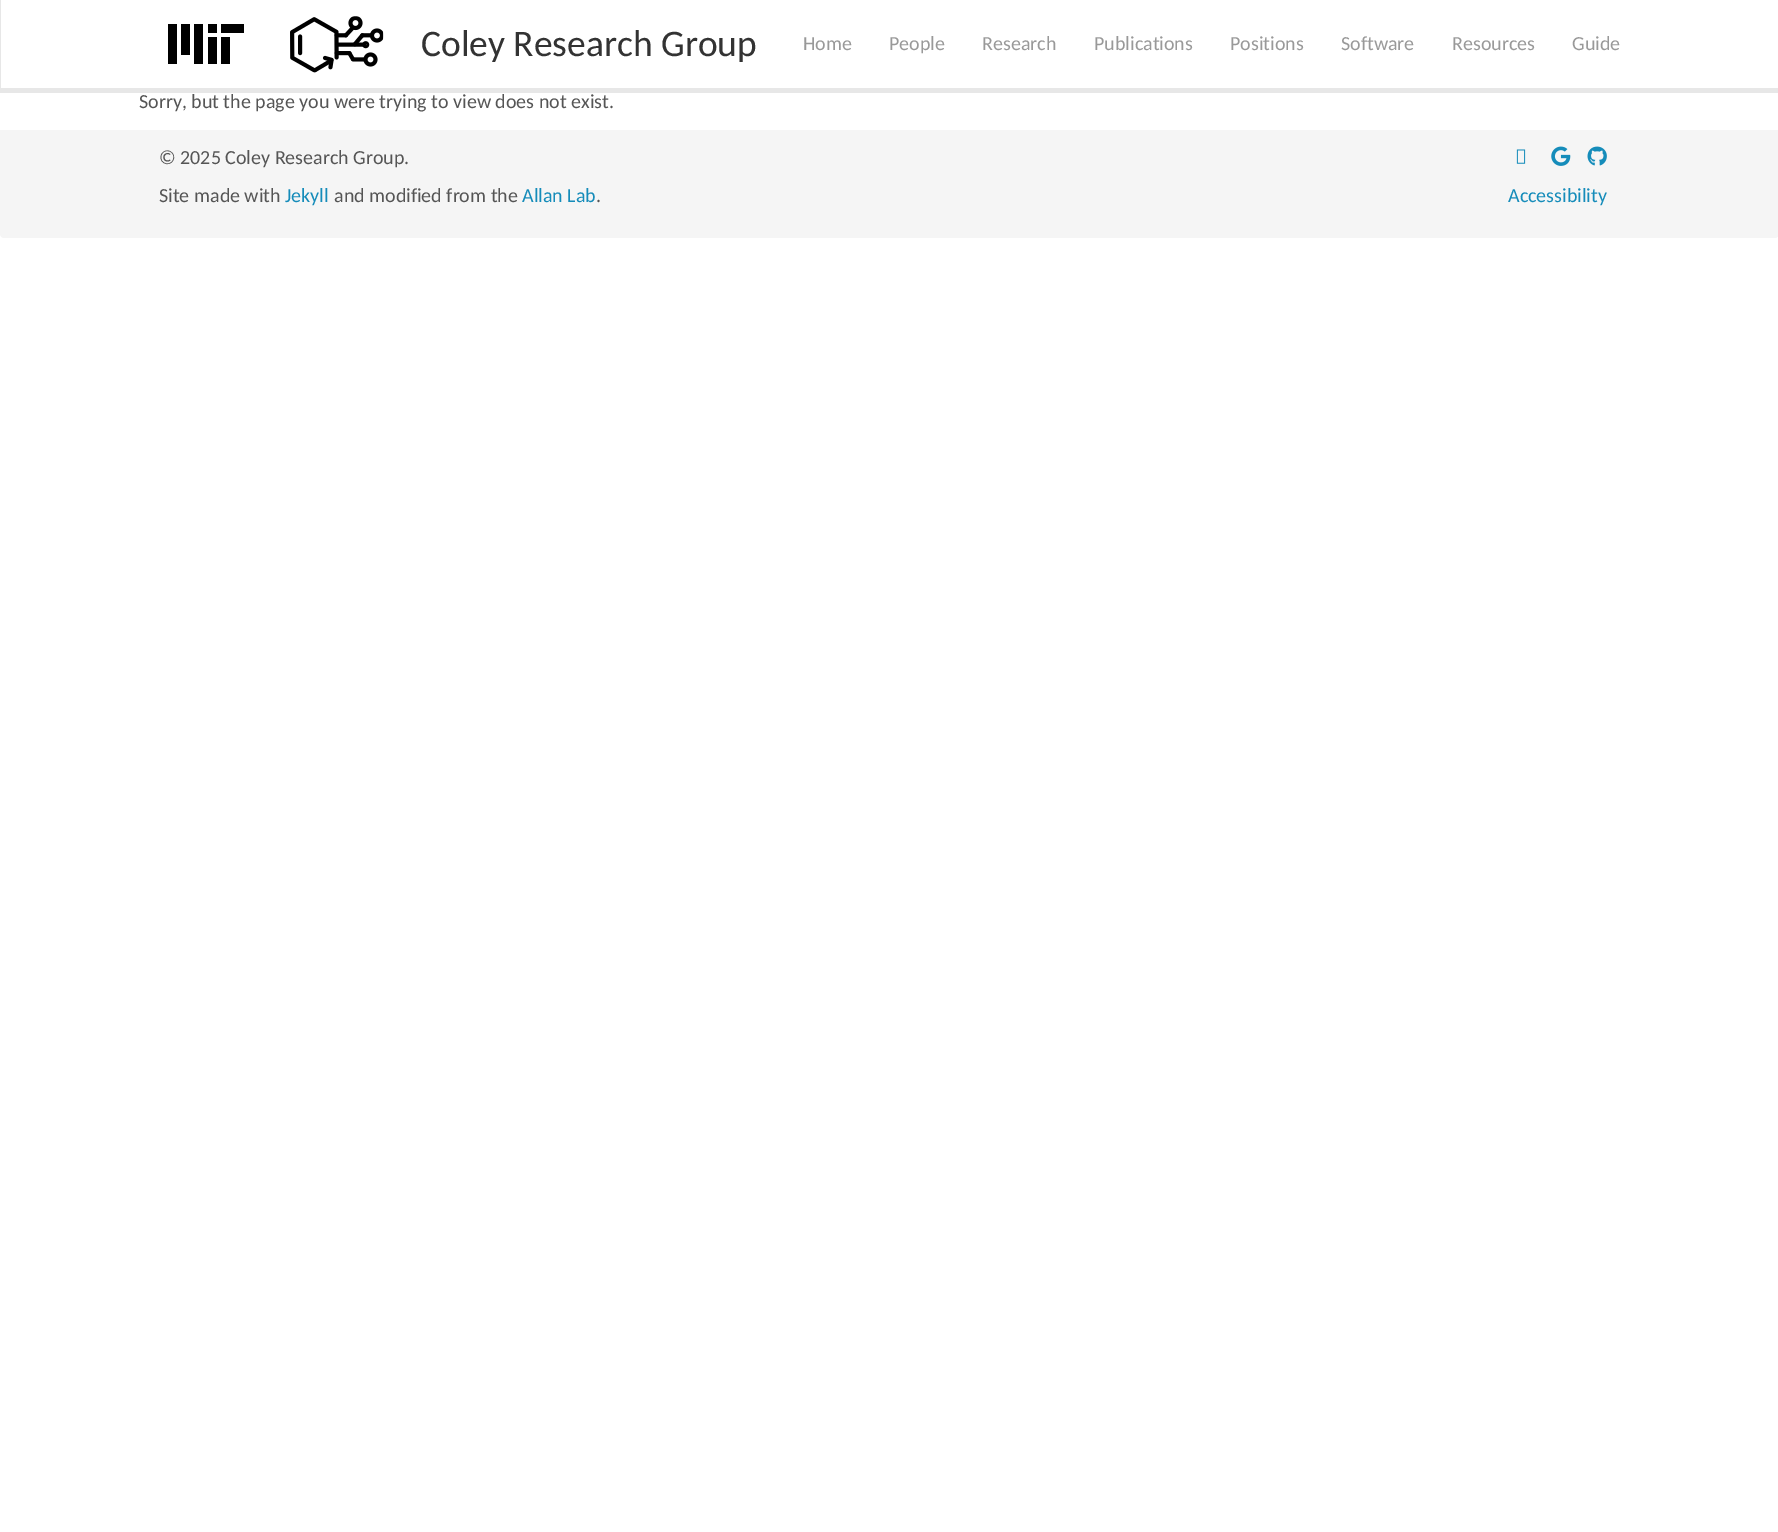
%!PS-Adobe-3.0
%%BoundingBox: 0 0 1778 1532
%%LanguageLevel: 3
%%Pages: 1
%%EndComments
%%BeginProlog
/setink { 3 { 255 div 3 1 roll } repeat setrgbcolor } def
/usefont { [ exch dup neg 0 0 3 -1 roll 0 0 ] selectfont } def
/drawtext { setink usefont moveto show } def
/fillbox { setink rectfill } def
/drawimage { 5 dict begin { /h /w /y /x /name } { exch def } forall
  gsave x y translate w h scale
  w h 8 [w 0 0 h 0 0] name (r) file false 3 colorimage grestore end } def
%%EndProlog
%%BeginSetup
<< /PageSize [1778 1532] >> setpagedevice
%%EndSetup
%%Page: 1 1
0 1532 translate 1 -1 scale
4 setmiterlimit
0 0 1778 1532 255 255 255 fillbox
0 88 1778 5 231 231 231 fillbox
0 0 1 93 231 231 231 fillbox
0 0 0 setink
208 64 moveto 217 64 lineto 217 37 lineto 208 37 lineto closepath 221 33 moveto 244 33 lineto 244 24 lineto 221 24 lineto closepath 208 24 moveto 217 24 lineto 217 33 lineto 208 33 lineto closepath 194 64 moveto 203 64 lineto 203 24 lineto 194 24 lineto closepath 181 55 moveto 190 55 lineto 190 24 lineto 181 24 lineto closepath 168 64 moveto 177 64 lineto 177 24 lineto 168 24 lineto closepath 221 64 moveto 230 64 lineto 230 37 lineto 221 37 lineto closepath fill
(assets/img1.rgb) 290 16 94 57 drawimage
(Coley Research Group) 421 56 /Carlito-Regular 37.5 51 51 51 drawtext
(Home) 803 50 /Carlito-Regular 20 153 153 153 drawtext
(People) 889 50 /Carlito-Regular 20 153 153 153 drawtext
(Research) 982 50 /Carlito-Regular 20 153 153 153 drawtext
(Publications) 1094 50 /Carlito-Regular 20 153 153 153 drawtext
(Positions) 1230 50 /Carlito-Regular 20 153 153 153 drawtext
(Software) 1341 50 /Carlito-Regular 20 153 153 153 drawtext
(Resources) 1452 50 /Carlito-Regular 20 153 153 153 drawtext
(Guide) 1572 50 /Carlito-Regular 20 153 153 153 drawtext
(Sorry, but the page you were trying to view does not exist.) 139 108 /Carlito-Regular 20 85 85 85 drawtext
245 245 245 setink
0 130 moveto 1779 130 lineto 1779 234 lineto 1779 236 1777 238 1775 238 curveto 4 238 lineto 2 238 0 236 0 234 curveto closepath fill
(© 2025 Coley Research Group.) 159 164 /Carlito-Regular 20 85 85 85 drawtext
(Site made with) 159 202 /Carlito-Regular 20 85 85 85 drawtext
(Jekyll) 285 202 /Carlito-Regular 20 21 140 186 drawtext
(and modified from the) 334 202 /Carlito-Regular 20 85 85 85 drawtext
(Allan Lab) 522 202 /Carlito-Regular 20 21 140 186 drawtext
(.) 596 202 /Carlito-Regular 20 85 85 85 drawtext
(assets/img2.rgb) 1516 149 10 15 drawimage
(assets/img3.rgb) 1551 146 20 20 drawimage
(assets/img4.rgb) 1587 146 20 20 drawimage
(Accessibility) 1508 202 /Carlito-Regular 20 21 140 186 drawtext
showpage
%%EOF
